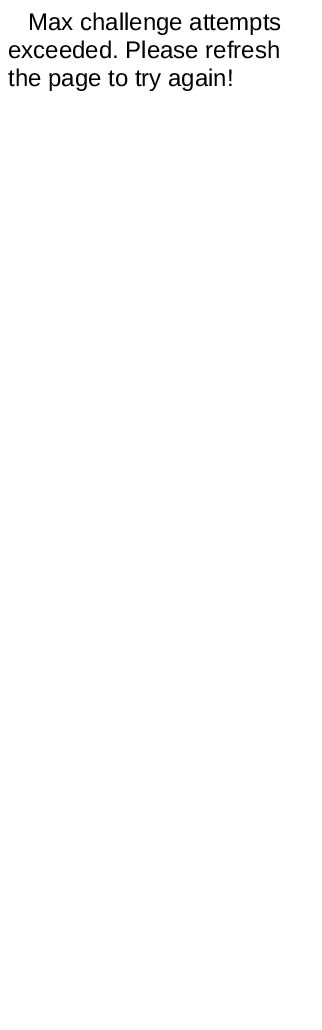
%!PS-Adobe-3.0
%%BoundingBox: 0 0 322 1030
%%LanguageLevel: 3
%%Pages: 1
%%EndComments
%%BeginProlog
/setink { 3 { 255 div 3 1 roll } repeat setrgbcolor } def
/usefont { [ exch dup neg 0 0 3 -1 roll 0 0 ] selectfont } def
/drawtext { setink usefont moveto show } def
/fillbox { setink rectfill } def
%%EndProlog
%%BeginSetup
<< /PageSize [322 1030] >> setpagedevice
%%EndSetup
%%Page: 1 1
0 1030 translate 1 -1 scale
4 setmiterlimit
0 0 322 1030 255 255 255 fillbox
(Max challenge attempts) 28 30 /LiberationSans-Regular 24 0 0 0 drawtext
(exceeded. Please refresh) 8 58 /LiberationSans-Regular 24 0 0 0 drawtext
(the page to try again!) 8 86 /LiberationSans-Regular 24 0 0 0 drawtext
showpage
%%EOF
